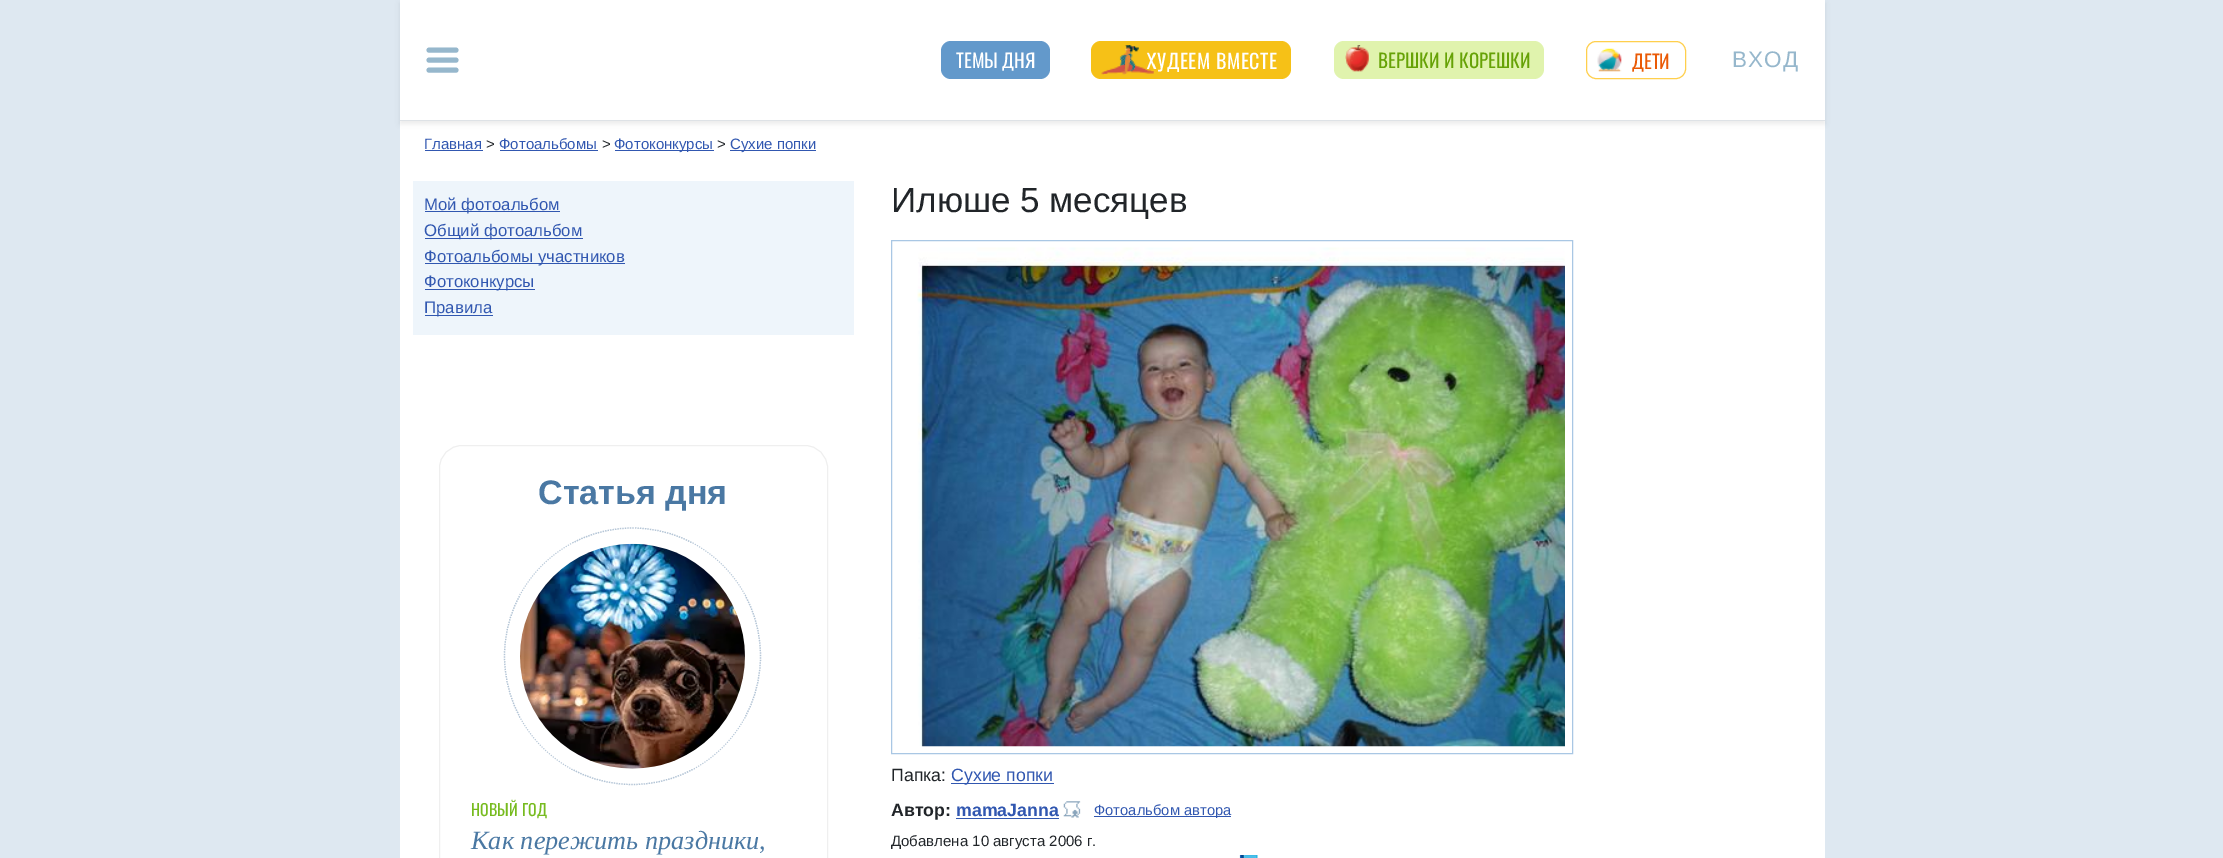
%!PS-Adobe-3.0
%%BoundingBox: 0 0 2223 858
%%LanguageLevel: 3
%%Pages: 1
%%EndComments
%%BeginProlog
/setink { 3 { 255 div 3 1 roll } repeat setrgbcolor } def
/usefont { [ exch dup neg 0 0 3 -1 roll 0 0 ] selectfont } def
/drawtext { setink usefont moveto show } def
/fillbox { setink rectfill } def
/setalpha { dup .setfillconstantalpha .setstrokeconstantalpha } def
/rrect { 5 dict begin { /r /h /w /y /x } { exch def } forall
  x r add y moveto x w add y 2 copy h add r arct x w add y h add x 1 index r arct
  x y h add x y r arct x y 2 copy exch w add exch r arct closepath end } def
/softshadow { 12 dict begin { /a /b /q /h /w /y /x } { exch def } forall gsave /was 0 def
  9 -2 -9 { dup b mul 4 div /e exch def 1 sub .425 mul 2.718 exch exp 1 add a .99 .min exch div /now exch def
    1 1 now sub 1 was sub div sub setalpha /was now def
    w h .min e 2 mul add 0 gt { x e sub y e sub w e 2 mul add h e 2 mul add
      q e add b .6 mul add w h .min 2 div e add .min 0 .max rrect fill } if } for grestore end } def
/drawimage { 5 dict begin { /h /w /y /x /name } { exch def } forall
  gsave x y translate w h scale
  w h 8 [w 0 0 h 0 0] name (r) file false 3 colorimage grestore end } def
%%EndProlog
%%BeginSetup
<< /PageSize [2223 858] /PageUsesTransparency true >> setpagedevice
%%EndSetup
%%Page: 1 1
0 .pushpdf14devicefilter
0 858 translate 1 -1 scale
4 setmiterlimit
0 0 2223 858 222 232 241 fillbox
400 121 1425 737 255 255 255 fillbox
0 0 0 setink
400 3 1425 121 0 2.5 0.07 softshadow
400 0 1425 120 255 255 255 fillbox
400 120 1425 1 222 226 230 fillbox
150 183 204 setink
5 setlinewidth
1 setlinecap
429 50 moveto 456 50 lineto 429 60 moveto 456 60 lineto 429 70 moveto 456 70 lineto stroke
99 153 203 setink
941 41 109 38 10 rrect fill
(ТЕМЫ) 956 68 /Oswald-Regular 19 255 255 255 drawtext
(ДНЯ) 1002 68 /Oswald-Regular 19 255 255 255 drawtext
246 193 23 setink
1091 41 200 38 10 rrect fill
/Oswald-Regular 20 usefont
255 255 255 setink
1147 69 moveto 0.5 0 (ХУДЕЕМ) ashow
(assets/img1.rgb) 1101 45 53 30 drawimage
1216 69 moveto 0.5 0 (ВМЕСТЕ) ashow
224 243 173 setink
1334 41 210 38 10 rrect fill
(assets/img2.rgb) 1345 45 24 27 drawimage
(ВЕРШКИ) 1378 68 /Oswald-Regular 19 102 162 6 drawtext
(И) 1444 68 /Oswald-Regular 19 102 162 6 drawtext
(КОРЕШКИ) 1459 68 /Oswald-Regular 19 102 162 6 drawtext
255 207 76 setink
1 setlinewidth
0 setlinecap
1586.5 41.5 99 37 9.5 rrect stroke
(assets/img3.rgb) 1597 48 25 24 drawimage
(ДЕТИ) 1632 69 /Oswald-Regular 19 234 90 6 drawtext
/LiberationSans-Regular 22.5 usefont
150 183 204 setink
1732 67 moveto 1 0 (ВХОД) ashow
(Главная) 424 149 /LiberationSans-Regular 15 49 87 176 drawtext
425 150 58 1 49 87 176 fillbox
(>) 486 149 /LiberationSans-Regular 15 33 37 41 drawtext
(Фотоальбомы) 499 149 /LiberationSans-Regular 15 49 87 176 drawtext
500 150 98 1 49 87 176 fillbox
(>) 602 149 /LiberationSans-Regular 15 33 37 41 drawtext
615 150 99 1 49 87 176 fillbox
(Фотоконкурсы) 614 149 /LiberationSans-Regular 15 49 87 176 drawtext
(>) 717 149 /LiberationSans-Regular 15 33 37 41 drawtext
730 150 86 1 49 87 176 fillbox
(Сухие попки) 730 149 /LiberationSans-Regular 15 49 87 176 drawtext
413 181 441 154 238 245 251 fillbox
425 211 135 1 49 87 176 fillbox
(Мой фотоальбом) 424 210 /LiberationSans-Regular 16.75 49 87 176 drawtext
425 238 158 1 49 87 176 fillbox
(Общий фотоальбом) 424 236 /LiberationSans-Regular 16.75 49 87 176 drawtext
425 263 200 1 49 87 176 fillbox
(Фотоальбомы участников) 424 262 /LiberationSans-Regular 16.75 49 87 176 drawtext
425 289 110 1 49 87 176 fillbox
(Фотоконкурсы) 424 287 /LiberationSans-Regular 16.75 49 87 176 drawtext
425 315 68 1 49 87 176 fillbox
(Правила) 424 313 /LiberationSans-Regular 16.75 49 87 176 drawtext
239 239 239 setink
439.5 445.5 388 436 22.5 rrect stroke
(Статья дня) 538 504 /LiberationSans-Bold 34 74 120 163 drawtext
180 197 214 setink
1.2 setlinewidth
[1.25 1.25] 0 setdash
632.5 528 moveto 703.5 528 760.5 585.5 760.5 656 curveto 760.5 727 703.5 784.5 632.5 784.5 curveto 561.5 784.5 504.5 727 504.5 656 curveto 504.5 585.5 561.5 528 632.5 528 curveto closepath stroke
(assets/img4.rgb) 520 543 225 226 drawimage
(НОВЫЙ) 471 816 /Oswald-Regular 16 119 187 31 drawtext
(ГОД) 522 816 /Oswald-Regular 16 119 187 31 drawtext
(Как пережить праздники,) 471 849 /LiberationSerif-Italic 26.25 74 120 163 drawtext
(Илюше 5 месяцев) 891 212 /LiberationSans-Regular 35 33 37 41 drawtext
169 199 228 setink
1 setlinewidth
[] 0 setdash
891.5 240.5 681 513 rectstroke
(assets/img5.rgb) 917 247 648 500 drawimage
(Папка:) 891 781 /LiberationSans-Regular 17.75 33 37 41 drawtext
951 783 103 1 49 87 176 fillbox
(Сухие попки) 951 781 /LiberationSans-Regular 17.75 49 87 176 drawtext
(Автор:) 891 816 /LiberationSans-Bold 17.75 33 37 41 drawtext
(mamaJanna) 956 816 /LiberationSans-Bold 17.75 49 87 176 drawtext
956 818 103 1 49 87 176 fillbox
(assets/img6.rgb) 1063 801 18 17 drawimage
1094 816 137 1 49 87 176 fillbox
(Фотоальбом автора) 1094 815 /LiberationSans-Regular 14.75 49 87 176 drawtext
(Добавлена 10 августа 2006 г.) 891 846 /LiberationSans-Regular 15 33 37 41 drawtext
(assets/img7.rgb) 1239 855 19 3 drawimage
.poppdf14devicefilter showpage
%%EOF
